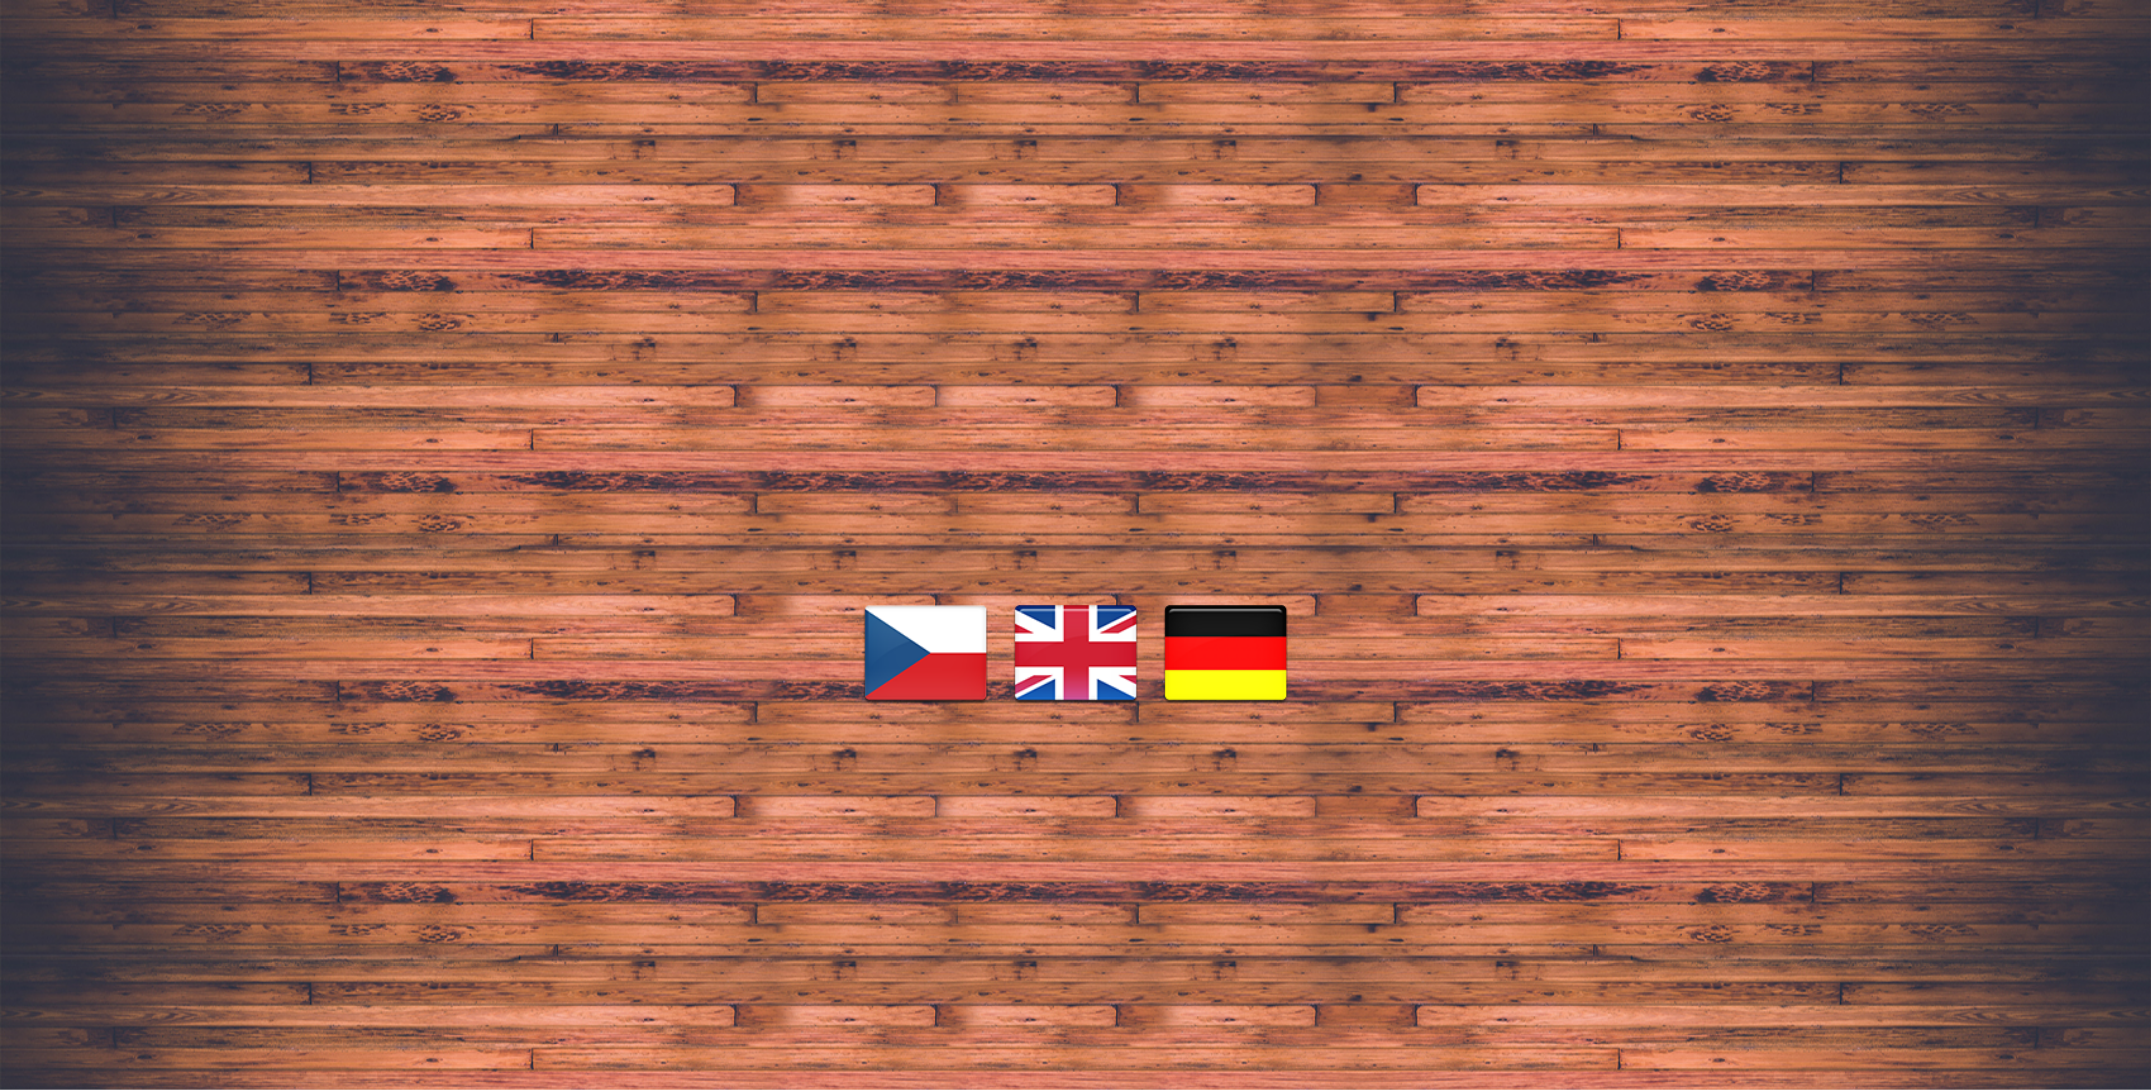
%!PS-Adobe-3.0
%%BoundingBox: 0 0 2151 1090
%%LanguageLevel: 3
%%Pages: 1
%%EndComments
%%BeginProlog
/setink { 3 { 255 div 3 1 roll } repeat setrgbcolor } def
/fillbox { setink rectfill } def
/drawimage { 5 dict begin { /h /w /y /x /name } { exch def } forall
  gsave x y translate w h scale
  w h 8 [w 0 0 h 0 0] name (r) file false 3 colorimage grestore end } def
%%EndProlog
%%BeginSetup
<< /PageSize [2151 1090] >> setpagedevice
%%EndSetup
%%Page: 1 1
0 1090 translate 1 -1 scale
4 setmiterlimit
0 0 2151 1090 255 255 255 fillbox
(assets/img1.rgb) 0 0 2151 1090 drawimage
(assets/img2.rgb) 863 602 125 102 drawimage
(assets/img3.rgb) 1013 604 125 100 drawimage
(assets/img4.rgb) 1163 604 125 100 drawimage
showpage
%%EOF
